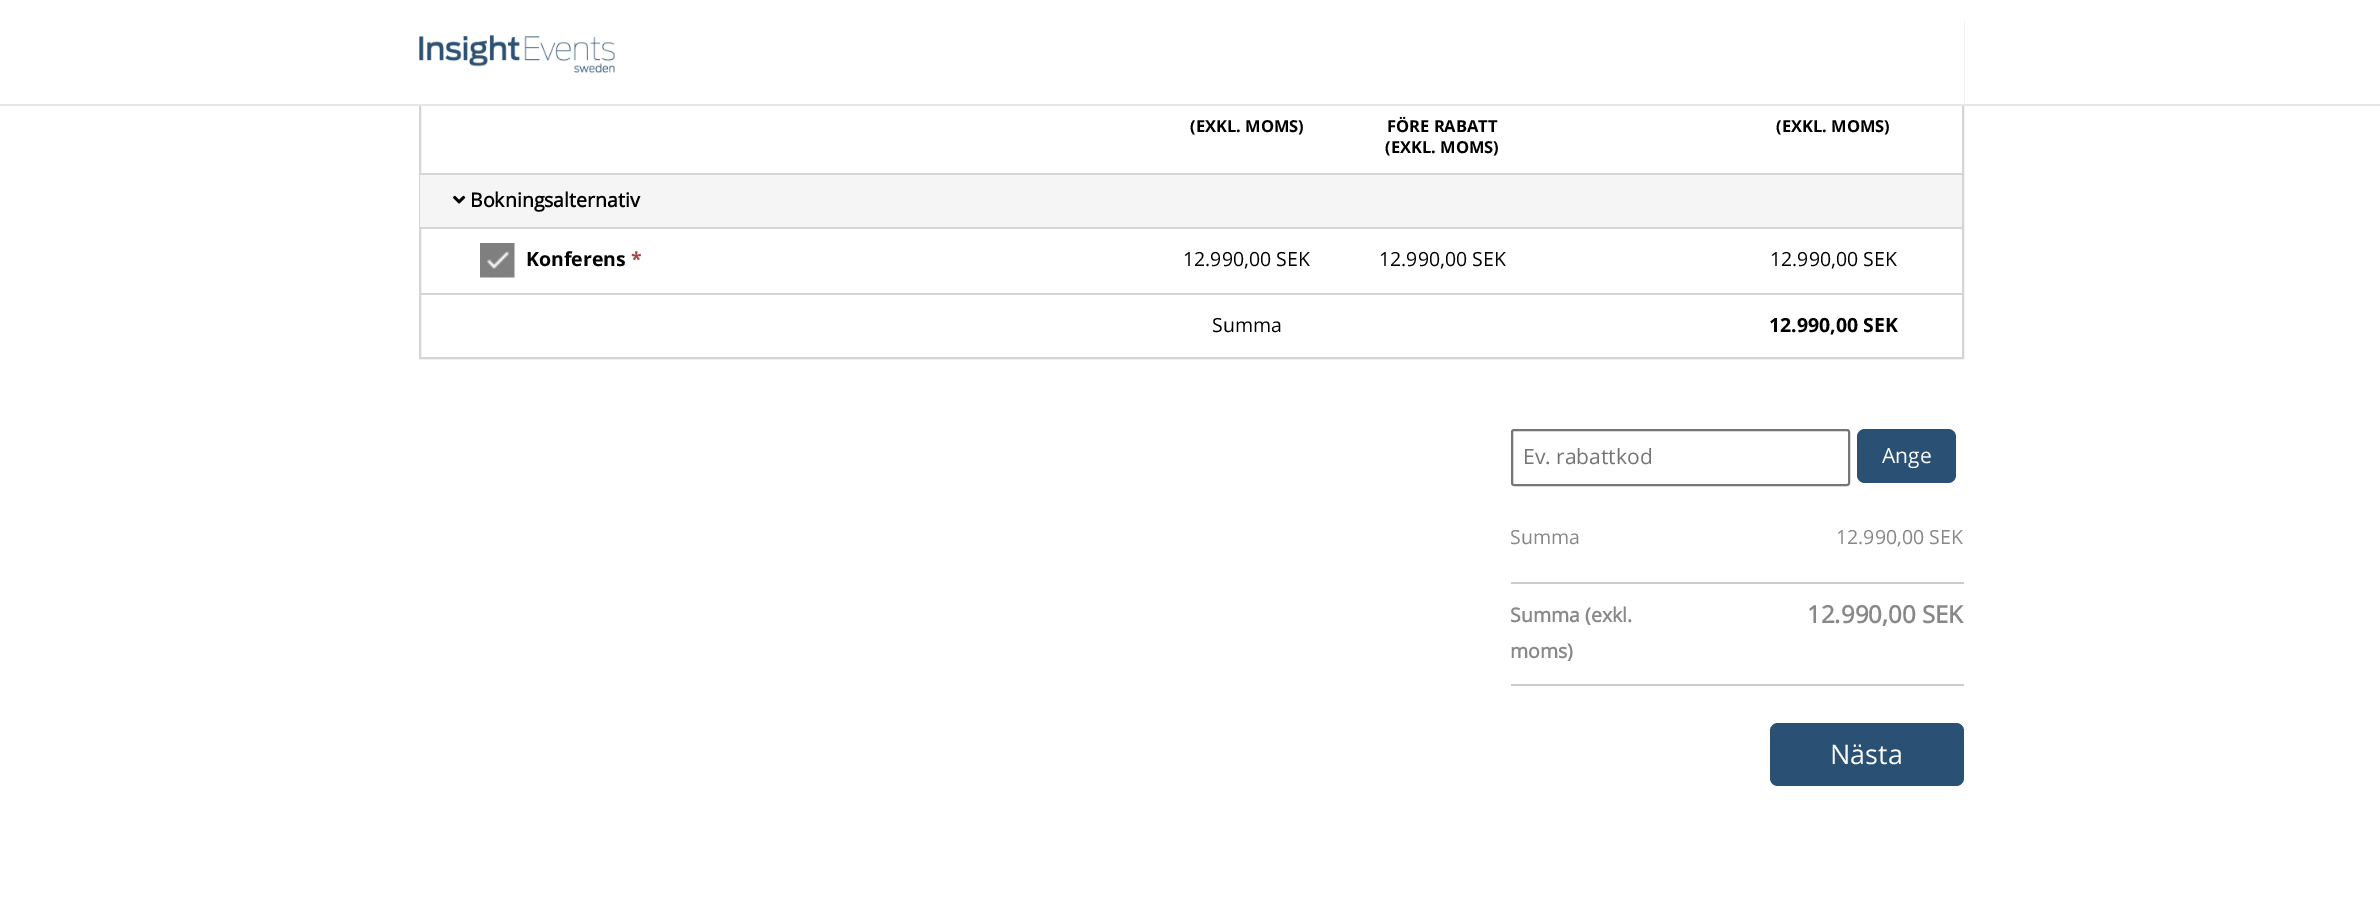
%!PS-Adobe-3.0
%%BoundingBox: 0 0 2380 904
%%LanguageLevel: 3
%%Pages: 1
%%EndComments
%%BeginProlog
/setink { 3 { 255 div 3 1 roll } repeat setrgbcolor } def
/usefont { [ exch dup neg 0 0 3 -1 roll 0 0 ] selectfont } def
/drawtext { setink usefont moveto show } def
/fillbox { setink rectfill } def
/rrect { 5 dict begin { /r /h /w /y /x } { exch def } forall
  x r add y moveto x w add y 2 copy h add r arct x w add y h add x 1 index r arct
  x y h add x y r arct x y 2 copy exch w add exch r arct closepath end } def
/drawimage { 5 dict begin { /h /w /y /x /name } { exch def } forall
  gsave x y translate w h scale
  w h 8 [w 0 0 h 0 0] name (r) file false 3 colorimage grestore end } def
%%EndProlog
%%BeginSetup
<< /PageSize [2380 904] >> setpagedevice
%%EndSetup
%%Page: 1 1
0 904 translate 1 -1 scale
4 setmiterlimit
0 0 2380 904 255 255 255 fillbox
213 213 211 setink
2 setlinewidth
420 21 1543 337 rectstroke
419 20 1545 84 255 255 255 fillbox
0 104 2380 2 230 230 230 fillbox
(assets/img1.rgb) 419 35 196 39 drawimage
(\(EXKL. MOMS\)) 1190 132 /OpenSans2-Bold 16.5 0 0 0 drawtext
(FÖRE RABATT) 1387 132 /OpenSans2-Bold 16.5 0 0 0 drawtext
(\(EXKL. MOMS\)) 1385 153 /OpenSans2-Bold 16.5 0 0 0 drawtext
(\(EXKL. MOMS\)) 1776 132 /OpenSans2-Bold 16.5 0 0 0 drawtext
420 175 1542 52 245 245 245 fillbox
420 173 1542 2 213 213 211 fillbox
420 227 1542 2 213 213 211 fillbox
(assets/img2.rgb) 453 195 13 9 drawimage
(Bokningsalternativ) 470 207 /OpenSans-Bold 19.5 0 0 0 drawtext
(assets/img3.rgb) 480 243 35 35 drawimage
(Konferens) 526 266 /OpenSans2-Bold 19.5 0 0 0 drawtext
(*) 631 266 /OpenSans2-Bold 19.5 169 68 66 drawtext
(12.990,00 SEK) 1183 266 /OpenSans2-Regular 19.5 0 0 0 drawtext
(12.990,00 SEK) 1379 266 /OpenSans2-Regular 19.5 0 0 0 drawtext
(12.990,00 SEK) 1770 266 /OpenSans2-Regular 19.5 0 0 0 drawtext
420 293 1542 2 213 213 211 fillbox
(Summa) 1212 332 /OpenSans2-Regular 19.5 0 0 0 drawtext
(12.990,00 SEK) 1769 332 /OpenSans2-Bold 19.5 0 0 0 drawtext
118 118 118 setink
1512 430 337 55 2 rrect stroke
(Ev. rabattkod) 1523 464 /OpenSans-Regular 21 117 117 117 drawtext
42 81 115 setink
1857 429 99 54 8 rrect fill
(Ange) 1882 463 /OpenSans-Regular 21 255 255 255 drawtext
(Summa) 1510 544 /OpenSans-Regular 19.5 136 136 136 drawtext
(12.990,00 SEK) 1836 544 /OpenSans-Regular 19.5 136 136 136 drawtext
1511 582 453 2 204 204 204 fillbox
1511 684 453 2 204 204 204 fillbox
(Summa \(exkl.) 1510 622 /OpenSans-Bold 19.5 136 136 136 drawtext
(moms\)) 1510 658 /OpenSans-Bold 19.5 136 136 136 drawtext
(12.990,00 SEK) 1807 623 /OpenSans-Bold 24 136 136 136 drawtext
42 81 115 setink
1770 723 194 63 8 rrect fill
(Nästa) 1830 764 /OpenSans-Regular 27 255 255 255 drawtext
showpage
%%EOF
